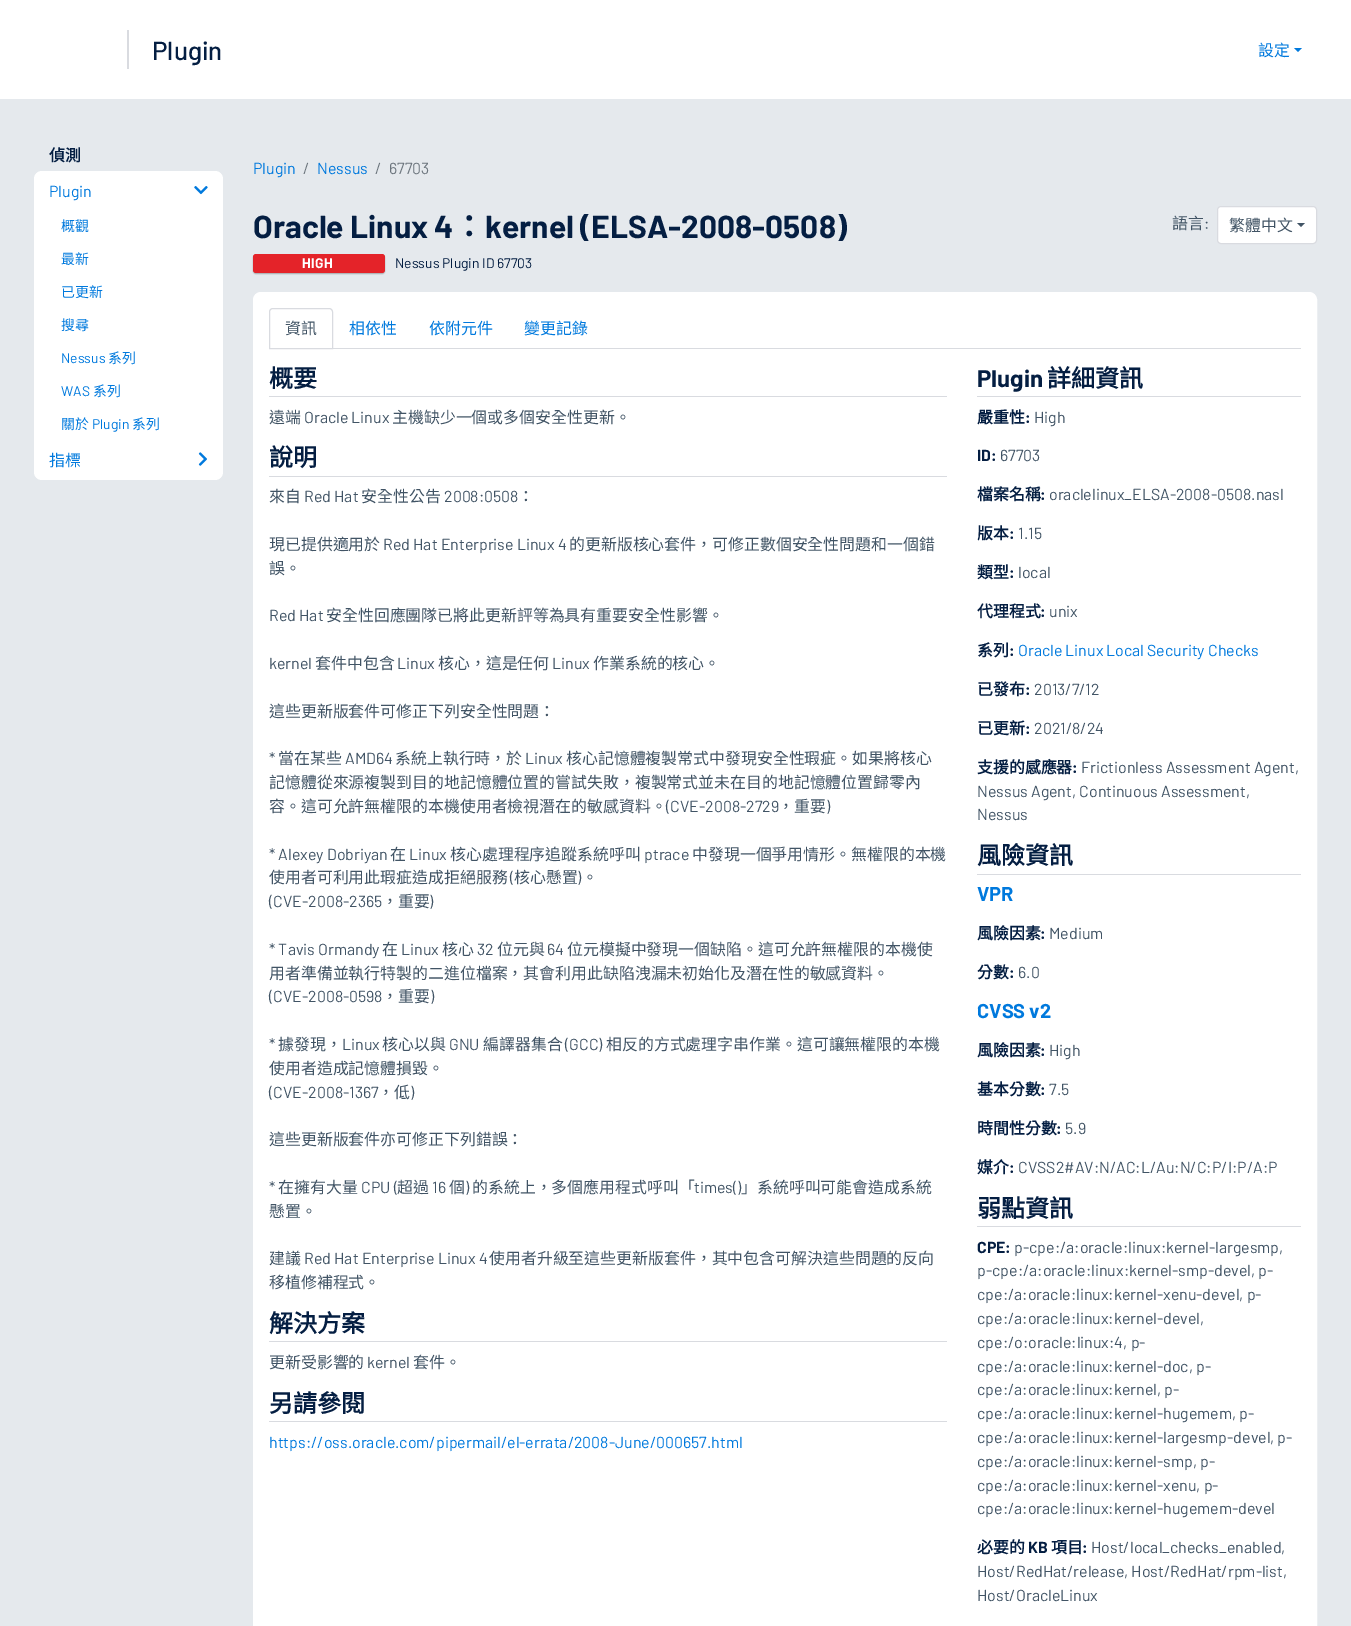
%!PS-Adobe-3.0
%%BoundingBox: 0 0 1351 1626
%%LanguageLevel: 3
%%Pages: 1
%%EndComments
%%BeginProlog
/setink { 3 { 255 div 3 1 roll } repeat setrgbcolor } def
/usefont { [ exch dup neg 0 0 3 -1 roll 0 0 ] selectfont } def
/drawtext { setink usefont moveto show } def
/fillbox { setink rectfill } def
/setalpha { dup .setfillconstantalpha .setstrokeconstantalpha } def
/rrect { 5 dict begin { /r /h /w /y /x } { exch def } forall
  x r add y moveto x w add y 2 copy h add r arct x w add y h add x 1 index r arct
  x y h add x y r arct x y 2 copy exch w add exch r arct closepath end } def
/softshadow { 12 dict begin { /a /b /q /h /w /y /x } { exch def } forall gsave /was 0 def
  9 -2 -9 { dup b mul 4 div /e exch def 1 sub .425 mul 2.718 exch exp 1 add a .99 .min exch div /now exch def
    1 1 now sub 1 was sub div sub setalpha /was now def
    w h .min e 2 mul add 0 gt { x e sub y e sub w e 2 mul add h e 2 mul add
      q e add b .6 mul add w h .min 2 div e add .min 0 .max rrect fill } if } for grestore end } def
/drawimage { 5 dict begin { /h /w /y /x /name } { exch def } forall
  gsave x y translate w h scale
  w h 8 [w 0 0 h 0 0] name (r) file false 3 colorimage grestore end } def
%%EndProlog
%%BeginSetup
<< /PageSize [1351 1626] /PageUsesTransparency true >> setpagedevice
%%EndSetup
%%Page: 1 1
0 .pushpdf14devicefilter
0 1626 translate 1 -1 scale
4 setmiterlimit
0 0 1351 1626 255 255 255 fillbox
127 30 2 39 217 219 224 fillbox
(Plugin) 152 60 /Barlow-Medium 26 4 30 66 drawtext
(設定) 1258 56 /NotoSansCJKTC-Regular 15.9 0 121 221 drawtext
1294 48 moveto 1302 48 lineto 1298 52 lineto closepath fill
0 99 1351 1527 229 233 237 fillbox
(偵測) 49 161 /NotoSansCJKTC-Bold 15.9 4 30 66 drawtext
255 255 255 setink
34 171 189 309 8 rrect fill
(Plugin) 49 197 /Barlow-Regular 15.9 0 121 221 drawtext
(assets/img1.rgb) 194 186 14 9 drawimage
(概觀) 61 231 /NotoSansCJKTC-Regular 13.9 0 121 221 drawtext
(最新) 61 264 /NotoSansCJKTC-Regular 13.9 0 121 221 drawtext
(已更新) 61 297 /NotoSansCJKTC-Regular 13.9 0 121 221 drawtext
(搜尋) 61 330 /NotoSansCJKTC-Regular 13.9 0 121 221 drawtext
(Nessus) 61 363 /Barlow-Regular 13.9 0 121 221 drawtext
(系列) 108 363 /NotoSansCJKTC-Regular 13.9 0 121 221 drawtext
(WAS) 61 396 /Barlow-Regular 13.9 0 121 221 drawtext
(系列) 93 396 /NotoSansCJKTC-Regular 13.9 0 121 221 drawtext
(關於) 61 429 /NotoSansCJKTC-Regular 13.9 0 121 221 drawtext
(Plugin) 92 429 /Barlow-Regular 13.9 0 121 221 drawtext
(系列) 132 429 /NotoSansCJKTC-Regular 13.9 0 121 221 drawtext
(指標) 49 466 /NotoSansCJKTC-Regular 15.9 0 121 221 drawtext
(assets/img2.rgb) 198 452 9 14 drawimage
(Plugin) 253 174 /Barlow-Regular 15.9 0 121 221 drawtext
(/) 303 174 /Barlow-Regular 15.9 108 117 125 drawtext
(Nessus) 317 174 /Barlow-Regular 15.9 0 121 221 drawtext
(/) 375 174 /Barlow-Regular 15.9 108 117 125 drawtext
(67703) 389 174 /Barlow-Regular 15.9 108 117 125 drawtext
(Oracle Linux 4) 253 238 /Barlow-Bold 31.75 4 30 66 drawtext
(：) 453 238 /NotoSansCJKTC-Bold 31.75 4 30 66 drawtext
(kernel \(ELSA-2008-0508\)) 485 238 /Barlow-Bold 31.75 4 30 66 drawtext
0 0 0 setink
253 255 132 19 3 0.5 0.25 softshadow
228 35 41 setink
253 254 132 19 3 rrect fill
/Barlow-Bold 13.9 usefont
255 255 255 setink
302 268 moveto 0.5 0 (HIGH) ashow
(Nessus Plugin ID 67703) 395 268 /Barlow-Regular 13.9 4 30 66 drawtext
(語言) 1172 229 /NotoSansCJKTC-Regular 15.9 65 84 101 drawtext
(:) 1204 229 /Barlow-Regular 15.9 65 84 101 drawtext
255 255 255 setink
1217.5 206.5 99 37 3.5 rrect gsave fill grestore
217 219 224 setink
stroke
(繁體中文) 1229 231 /NotoSansCJKTC-Regular 15.9 65 84 101 drawtext
1297 223 moveto 1305 223 lineto 1301 227 lineto closepath fill
255 255 255 setink
253.5 292.5 1063 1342 7.5 rrect gsave fill grestore
stroke
333 348 968 1 217 219 224 fillbox
273 308.5 moveto 329 308.5 lineto 331 308.5 332.5 310 332.5 312 curveto 332.5 348.5 lineto 269.5 348.5 lineto 269.5 312 lineto 269.5 310 271 308.5 273 308.5 curveto closepath stroke
(資訊) 285 334 /NotoSansCJKTC-Regular 15.9 65 84 101 drawtext
(相依性) 349 334 /NotoSansCJKTC-Regular 15.9 0 121 221 drawtext
(依附元件) 429 334 /NotoSansCJKTC-Regular 15.9 0 121 221 drawtext
(變更記錄) 524 334 /NotoSansCJKTC-Regular 15.9 0 121 221 drawtext
269 396 678 1 217 219 224 fillbox
(概要) 269 387 /NotoSansCJKTC-Bold 24 4 30 66 drawtext
(遠端) 269 423 /NotoSansCJKTC-Regular 15.9 65 84 101 drawtext
(Oracle Linux) 304 423 /Barlow-Regular 15.9 65 84 101 drawtext
(主機缺少一個或多個安全性更新。) 392 423 /NotoSansCJKTC-Regular 15.9 65 84 101 drawtext
269 476 678 1 217 219 224 fillbox
(說明) 269 466 /NotoSansCJKTC-Bold 24 4 30 66 drawtext
(來自) 269 502 /NotoSansCJKTC-Regular 15.9 65 84 101 drawtext
(Red Hat) 304 502 /Barlow-Regular 15.9 65 84 101 drawtext
(安全性公告) 361 502 /NotoSansCJKTC-Regular 15.9 65 84 101 drawtext
(2008:0508) 444 502 /Barlow-Regular 15.9 65 84 101 drawtext
(：) 518 502 /NotoSansCJKTC-Regular 15.9 65 84 101 drawtext
(現已提供適用於) 269 550 /NotoSansCJKTC-Regular 15.9 65 84 101 drawtext
(Red Hat Enterprise Linux 4) 383 550 /Barlow-Regular 15.9 65 84 101 drawtext
(的更新版核心套件，可修正數個安全性問題和一個錯) 569 550 /NotoSansCJKTC-Regular 15.9 65 84 101 drawtext
(誤。) 269 574 /NotoSansCJKTC-Regular 15.9 65 84 101 drawtext
(Red Hat) 269 621 /Barlow-Regular 15.9 65 84 101 drawtext
(安全性回應團隊已將此更新評等為具有重要安全性影響。) 326 621 /NotoSansCJKTC-Regular 15.9 65 84 101 drawtext
(kernel) 269 669 /Barlow-Regular 15.9 65 84 101 drawtext
(套件中包含) 315 669 /NotoSansCJKTC-Regular 15.9 65 84 101 drawtext
(Linux) 397 669 /Barlow-Regular 15.9 65 84 101 drawtext
(核心，這是任何) 438 669 /NotoSansCJKTC-Regular 15.9 65 84 101 drawtext
(Linux) 552 669 /Barlow-Regular 15.9 65 84 101 drawtext
(作業系統的核心。) 593 669 /NotoSansCJKTC-Regular 15.9 65 84 101 drawtext
(這些更新版套件可修正下列安全性問題：) 269 717 /NotoSansCJKTC-Regular 15.9 65 84 101 drawtext
(*) 269 764 /Barlow-Regular 15.9 65 84 101 drawtext
(當在某些) 278 764 /NotoSansCJKTC-Regular 15.9 65 84 101 drawtext
(AMD64) 345 764 /Barlow-Regular 15.9 65 84 101 drawtext
(系統上執行時，於) 395 764 /NotoSansCJKTC-Regular 15.9 65 84 101 drawtext
(Linux) 525 764 /Barlow-Regular 15.9 65 84 101 drawtext
(核心記憶體複製常式中發現安全性瑕疵。如果將核心) 566 764 /NotoSansCJKTC-Regular 15.9 65 84 101 drawtext
(記憶體從來源複製到目的地記憶體位置的嘗試失敗，複製常式並未在目的地記憶體位置歸零內) 269 788 /NotoSansCJKTC-Regular 15.9 65 84 101 drawtext
(容。這可允許無權限的本機使用者檢視潛在的敏感資料。) 269 812 /NotoSansCJKTC-Regular 15.9 65 84 101 drawtext
(\(CVE-2008-2729) 666 812 /Barlow-Regular 15.9 65 84 101 drawtext
(，重要) 778 812 /NotoSansCJKTC-Regular 15.9 65 84 101 drawtext
(\)) 826 812 /Barlow-Regular 15.9 65 84 101 drawtext
(* Alexey Dobriyan) 269 860 /Barlow-Regular 15.9 65 84 101 drawtext
(在) 390 860 /NotoSansCJKTC-Regular 15.9 65 84 101 drawtext
(Linux) 409 860 /Barlow-Regular 15.9 65 84 101 drawtext
(核心處理程序追蹤系統呼叫) 450 860 /NotoSansCJKTC-Regular 15.9 65 84 101 drawtext
(ptrace) 644 860 /Barlow-Regular 15.9 65 84 101 drawtext
(中發現一個爭用情形。無權限的本機) 692 860 /NotoSansCJKTC-Regular 15.9 65 84 101 drawtext
(使用者可利用此瑕疵造成拒絕服務) 269 883 /NotoSansCJKTC-Regular 15.9 65 84 101 drawtext
(\() 510 883 /Barlow-Regular 15.9 65 84 101 drawtext
(核心懸置) 514 883 /NotoSansCJKTC-Regular 15.9 65 84 101 drawtext
(\)) 577 883 /Barlow-Regular 15.9 65 84 101 drawtext
(。) 582 883 /NotoSansCJKTC-Regular 15.9 65 84 101 drawtext
(\(CVE-2008-2365) 269 907 /Barlow-Regular 15.9 65 84 101 drawtext
(，重要) 382 907 /NotoSansCJKTC-Regular 15.9 65 84 101 drawtext
(\)) 429 907 /Barlow-Regular 15.9 65 84 101 drawtext
(* Tavis Ormandy) 269 955 /Barlow-Regular 15.9 65 84 101 drawtext
(在) 382 955 /NotoSansCJKTC-Regular 15.9 65 84 101 drawtext
(Linux) 401 955 /Barlow-Regular 15.9 65 84 101 drawtext
(核心) 442 955 /NotoSansCJKTC-Regular 15.9 65 84 101 drawtext
(32) 477 955 /Barlow-Regular 15.9 65 84 101 drawtext
(位元與) 497 955 /NotoSansCJKTC-Regular 15.9 65 84 101 drawtext
(64) 547 955 /Barlow-Regular 15.9 65 84 101 drawtext
(位元模擬中發現一個缺陷。這可允許無權限的本機使) 567 955 /NotoSansCJKTC-Regular 15.9 65 84 101 drawtext
(用者準備並執行特製的二進位檔案，其會利用此缺陷洩漏未初始化及潛在性的敏感資料。) 269 979 /NotoSansCJKTC-Regular 15.9 65 84 101 drawtext
(\(CVE-2008-0598) 269 1002 /Barlow-Regular 15.9 65 84 101 drawtext
(，重要) 382 1002 /NotoSansCJKTC-Regular 15.9 65 84 101 drawtext
(\)) 430 1002 /Barlow-Regular 15.9 65 84 101 drawtext
(*) 269 1050 /Barlow-Regular 15.9 65 84 101 drawtext
(據發現，) 278 1050 /NotoSansCJKTC-Regular 15.9 65 84 101 drawtext
(Linux) 342 1050 /Barlow-Regular 15.9 65 84 101 drawtext
(核心以與) 382 1050 /NotoSansCJKTC-Regular 15.9 65 84 101 drawtext
(GNU) 449 1050 /Barlow-Regular 15.9 65 84 101 drawtext
(編譯器集合) 483 1050 /NotoSansCJKTC-Regular 15.9 65 84 101 drawtext
(\(GCC\)) 565 1050 /Barlow-Regular 15.9 65 84 101 drawtext
(相反的方式處理字串作業。這可讓無權限的本機) 606 1050 /NotoSansCJKTC-Regular 15.9 65 84 101 drawtext
(使用者造成記憶體損毀。) 269 1074 /NotoSansCJKTC-Regular 15.9 65 84 101 drawtext
(\(CVE-2008-1367) 269 1098 /Barlow-Regular 15.9 65 84 101 drawtext
(，低) 378 1098 /NotoSansCJKTC-Regular 15.9 65 84 101 drawtext
(\)) 410 1098 /Barlow-Regular 15.9 65 84 101 drawtext
(這些更新版套件亦可修正下列錯誤：) 269 1145 /NotoSansCJKTC-Regular 15.9 65 84 101 drawtext
(*) 269 1193 /Barlow-Regular 15.9 65 84 101 drawtext
(在擁有大量) 278 1193 /NotoSansCJKTC-Regular 15.9 65 84 101 drawtext
(CPU \() 361 1193 /Barlow-Regular 15.9 65 84 101 drawtext
(超過) 397 1193 /NotoSansCJKTC-Regular 15.9 65 84 101 drawtext
(16) 432 1193 /Barlow-Regular 15.9 65 84 101 drawtext
(個) 449 1193 /NotoSansCJKTC-Regular 15.9 65 84 101 drawtext
(\)) 465 1193 /Barlow-Regular 15.9 65 84 101 drawtext
(的系統上，多個應用程式呼叫「) 472 1193 /NotoSansCJKTC-Regular 15.9 65 84 101 drawtext
(times\(\)) 694 1193 /Barlow-Regular 15.9 65 84 101 drawtext
(」系統呼叫可能會造成系統) 741 1193 /NotoSansCJKTC-Regular 15.9 65 84 101 drawtext
(懸置。) 269 1217 /NotoSansCJKTC-Regular 15.9 65 84 101 drawtext
(建議) 269 1264 /NotoSansCJKTC-Regular 15.9 65 84 101 drawtext
(Red Hat Enterprise Linux 4) 304 1264 /Barlow-Regular 15.9 65 84 101 drawtext
(使用者升級至這些更新版套件，其中包含可解決這些問題的反向) 489 1264 /NotoSansCJKTC-Regular 15.9 65 84 101 drawtext
(移植修補程式。) 269 1288 /NotoSansCJKTC-Regular 15.9 65 84 101 drawtext
269 1341 678 1 217 219 224 fillbox
(解決方案) 269 1332 /NotoSansCJKTC-Bold 24 4 30 66 drawtext
(更新受影響的) 269 1368 /NotoSansCJKTC-Regular 15.9 65 84 101 drawtext
(kernel) 367 1368 /Barlow-Regular 15.9 65 84 101 drawtext
(套件。) 413 1368 /NotoSansCJKTC-Regular 15.9 65 84 101 drawtext
269 1421 678 1 217 219 224 fillbox
(另請參閱) 269 1412 /NotoSansCJKTC-Bold 24 4 30 66 drawtext
(https://oss.oracle.com/pipermail/el-errata/2008-June/000657.html) 269 1448 /Barlow-Regular 15.9 0 121 221 drawtext
977 396 324 1 217 219 224 fillbox
(Plugin) 977 387 /Barlow-Bold 24 4 30 66 drawtext
(詳細資訊) 1047 387 /NotoSansCJKTC-Bold 24 4 30 66 drawtext
(嚴重性) 977 423 /NotoSansCJKTC-Bold 15.9 4 30 66 drawtext
(:) 1025 423 /Barlow-Bold 15.9 4 30 66 drawtext
(High) 1034 423 /Barlow-Regular 15.9 65 84 101 drawtext
(ID:) 977 461 /Barlow-Bold 15.9 4 30 66 drawtext
(67703) 1000 461 /Barlow-Regular 15.9 65 84 101 drawtext
(檔案名稱) 977 500 /NotoSansCJKTC-Bold 15.9 4 30 66 drawtext
(:) 1040 500 /Barlow-Bold 15.9 4 30 66 drawtext
(oraclelinux_ELSA-2008-0508.nasl) 1049 500 /Barlow-Regular 15.9 65 84 101 drawtext
(版本) 977 539 /NotoSansCJKTC-Bold 15.9 4 30 66 drawtext
(:) 1009 539 /Barlow-Bold 15.9 4 30 66 drawtext
(1.15) 1018 539 /Barlow-Regular 15.9 65 84 101 drawtext
(類型) 977 578 /NotoSansCJKTC-Bold 15.9 4 30 66 drawtext
(:) 1009 578 /Barlow-Bold 15.9 4 30 66 drawtext
(local) 1018 578 /Barlow-Regular 15.9 65 84 101 drawtext
(代理程式) 977 617 /NotoSansCJKTC-Bold 15.9 4 30 66 drawtext
(:) 1040 617 /Barlow-Bold 15.9 4 30 66 drawtext
(unix) 1049 617 /Barlow-Regular 15.9 65 84 101 drawtext
(系列) 977 656 /NotoSansCJKTC-Bold 15.9 4 30 66 drawtext
(:) 1009 656 /Barlow-Bold 15.9 4 30 66 drawtext
(Oracle Linux Local Security Checks) 1018 656 /Barlow-Regular 15.9 0 121 221 drawtext
(已發布) 977 695 /NotoSansCJKTC-Bold 15.9 4 30 66 drawtext
(:) 1025 695 /Barlow-Bold 15.9 4 30 66 drawtext
(2013/7/12) 1034 695 /Barlow-Regular 15.9 65 84 101 drawtext
(已更新) 977 734 /NotoSansCJKTC-Bold 15.9 4 30 66 drawtext
(:) 1025 734 /Barlow-Bold 15.9 4 30 66 drawtext
(2021/8/24) 1034 734 /Barlow-Regular 15.9 65 84 101 drawtext
(支援的感應器) 977 773 /NotoSansCJKTC-Bold 15.9 4 30 66 drawtext
(:) 1072 773 /Barlow-Bold 15.9 4 30 66 drawtext
(Frictionless Assessment Agent,) 1081 773 /Barlow-Regular 15.9 65 84 101 drawtext
(Nessus Agent, Continuous Assessment,) 977 797 /Barlow-Regular 15.9 65 84 101 drawtext
(Nessus) 977 820 /Barlow-Regular 15.9 65 84 101 drawtext
977 874 324 1 217 219 224 fillbox
(風險資訊) 977 864 /NotoSansCJKTC-Bold 24 4 30 66 drawtext
(VPR) 977 901 /Barlow-Bold 20 0 121 221 drawtext
(風險因素) 977 939 /NotoSansCJKTC-Bold 15.9 4 30 66 drawtext
(:) 1040 939 /Barlow-Bold 15.9 4 30 66 drawtext
(Medium) 1049 939 /Barlow-Regular 15.9 65 84 101 drawtext
(分數) 977 978 /NotoSansCJKTC-Bold 15.9 4 30 66 drawtext
(:) 1009 978 /Barlow-Bold 15.9 4 30 66 drawtext
(6.0) 1018 978 /Barlow-Regular 15.9 65 84 101 drawtext
(CVSS v2) 977 1018 /Barlow-Bold 20 0 121 221 drawtext
(風險因素) 977 1056 /NotoSansCJKTC-Bold 15.9 4 30 66 drawtext
(:) 1040 1056 /Barlow-Bold 15.9 4 30 66 drawtext
(High) 1049 1056 /Barlow-Regular 15.9 65 84 101 drawtext
(基本分數) 977 1095 /NotoSansCJKTC-Bold 15.9 4 30 66 drawtext
(:) 1040 1095 /Barlow-Bold 15.9 4 30 66 drawtext
(7.5) 1049 1095 /Barlow-Regular 15.9 65 84 101 drawtext
(時間性分數) 977 1134 /NotoSansCJKTC-Bold 15.9 4 30 66 drawtext
(:) 1056 1134 /Barlow-Bold 15.9 4 30 66 drawtext
(5.9) 1065 1134 /Barlow-Regular 15.9 65 84 101 drawtext
(媒介) 977 1173 /NotoSansCJKTC-Bold 15.9 4 30 66 drawtext
(:) 1009 1173 /Barlow-Bold 15.9 4 30 66 drawtext
(CVSS2#AV:N/AC:L/Au:N/C:P/I:P/A:P) 1018 1173 /Barlow-Regular 15.9 65 84 101 drawtext
977 1226 324 1 217 219 224 fillbox
(弱點資訊) 977 1217 /NotoSansCJKTC-Bold 24 4 30 66 drawtext
(CPE:) 977 1253 /Barlow-Bold 15.9 4 30 66 drawtext
(p-cpe:/a:oracle:linux:kernel-largesmp,) 1014 1253 /Barlow-Regular 15.9 65 84 101 drawtext
(p-cpe:/a:oracle:linux:kernel-smp-devel, p-) 977 1276 /Barlow-Regular 15.9 65 84 101 drawtext
(cpe:/a:oracle:linux:kernel-xenu-devel, p-) 977 1300 /Barlow-Regular 15.9 65 84 101 drawtext
(cpe:/a:oracle:linux:kernel-devel,) 977 1324 /Barlow-Regular 15.9 65 84 101 drawtext
(cpe:/o:oracle:linux:4, p-) 977 1348 /Barlow-Regular 15.9 65 84 101 drawtext
(cpe:/a:oracle:linux:kernel-doc, p-) 977 1372 /Barlow-Regular 15.9 65 84 101 drawtext
(cpe:/a:oracle:linux:kernel, p-) 977 1395 /Barlow-Regular 15.9 65 84 101 drawtext
(cpe:/a:oracle:linux:kernel-hugemem, p-) 977 1419 /Barlow-Regular 15.9 65 84 101 drawtext
(cpe:/a:oracle:linux:kernel-largesmp-devel) 977 1443 /Barlow-Regular 15.9 65 84 101 drawtext
(, p-) 1270 1443 /Barlow-Regular 15.9 65 84 101 drawtext
(cpe:/a:oracle:linux:kernel-smp, p-) 977 1467 /Barlow-Regular 15.9 65 84 101 drawtext
(cpe:/a:oracle:linux:kernel-xenu, p-) 977 1491 /Barlow-Regular 15.9 65 84 101 drawtext
(cpe:/a:oracle:linux:kernel-hugemem-devel) 977 1514 /Barlow-Regular 15.9 65 84 101 drawtext
(必要的) 977 1553 /NotoSansCJKTC-Bold 15.9 4 30 66 drawtext
(KB) 1028 1553 /Barlow-Bold 15.9 4 30 66 drawtext
(項目) 1051 1553 /NotoSansCJKTC-Bold 15.9 4 30 66 drawtext
(:) 1082 1553 /Barlow-Bold 15.9 4 30 66 drawtext
(Host/local_checks_enabled,) 1091 1553 /Barlow-Regular 15.9 65 84 101 drawtext
(Host/RedHat/release, Host/RedHat/rpm-list,) 977 1577 /Barlow-Regular 15.9 65 84 101 drawtext
(Host/OracleLinux) 977 1601 /Barlow-Regular 15.9 65 84 101 drawtext
.poppdf14devicefilter showpage
%%EOF
